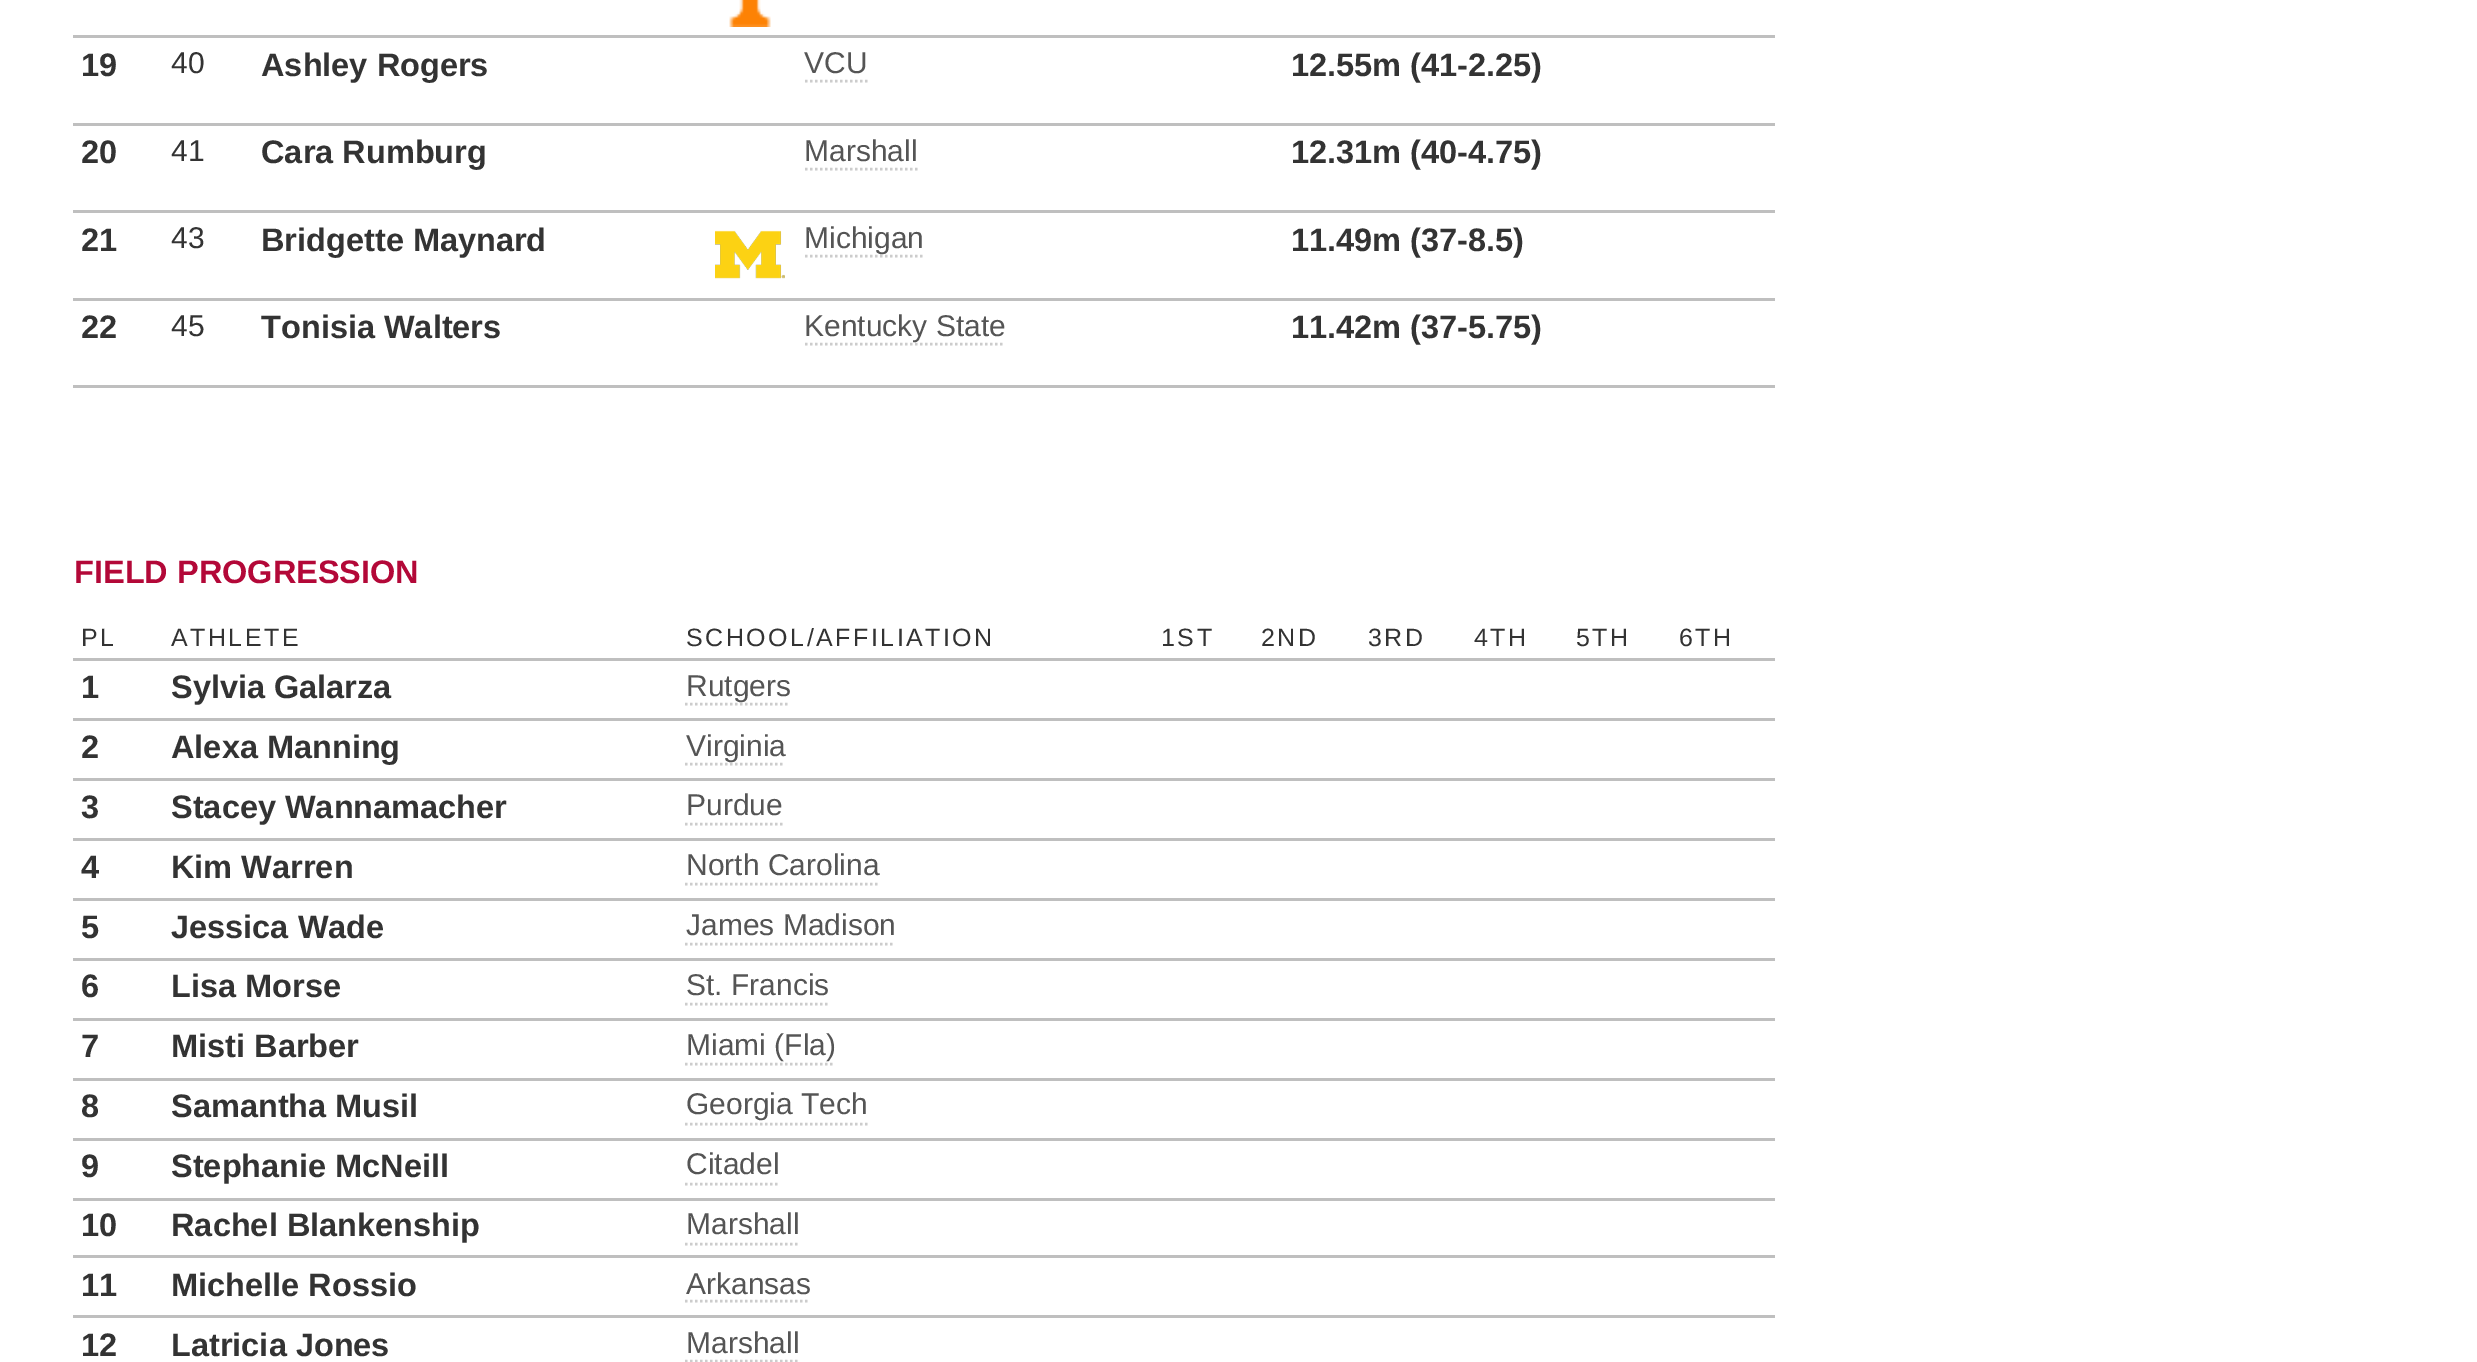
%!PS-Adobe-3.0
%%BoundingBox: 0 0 2477 1362
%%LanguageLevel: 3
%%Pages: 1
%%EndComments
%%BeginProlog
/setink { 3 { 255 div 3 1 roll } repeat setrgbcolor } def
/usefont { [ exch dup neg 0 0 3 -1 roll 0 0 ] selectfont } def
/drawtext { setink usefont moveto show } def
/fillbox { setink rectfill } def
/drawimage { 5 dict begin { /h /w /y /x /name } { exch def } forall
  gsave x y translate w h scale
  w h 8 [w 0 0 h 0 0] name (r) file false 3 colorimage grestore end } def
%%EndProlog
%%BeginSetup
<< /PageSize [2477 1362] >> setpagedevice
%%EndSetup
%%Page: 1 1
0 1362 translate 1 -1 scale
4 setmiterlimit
0 0 2477 1362 255 255 255 fillbox
(assets/img1.rgb) 729 0 42 27 drawimage
73 35 1702 3 191 191 191 fillbox
(19) 81 76 /LiberationSans-Bold 32.5 51 51 51 drawtext
(40) 171 73 /LiberationSans-Regular 30 51 51 51 drawtext
(Ashley Rogers) 261 76 /LiberationSans-Bold 32.5 51 51 51 drawtext
(VCU) 804 73 /LiberationSans-Regular 30 85 85 85 drawtext
204 204 204 setink
2.5 setlinewidth
[2.5 2.5] 0 setdash
805 81 moveto 867.5 81 lineto stroke
(12.55m \(41-2.25\)) 1291 76 /LiberationSans-Bold 32.5 51 51 51 drawtext
73 123 1702 3 191 191 191 fillbox
(20) 81 163 /LiberationSans-Bold 32.5 51 51 51 drawtext
(41) 171 161 /LiberationSans-Regular 30 51 51 51 drawtext
(Cara Rumburg) 261 163 /LiberationSans-Bold 32.5 51 51 51 drawtext
(Marshall) 804 161 /LiberationSans-Regular 30 85 85 85 drawtext
204 204 204 setink
805 169 moveto 917.5 169 lineto stroke
(12.31m \(40-4.75\)) 1291 163 /LiberationSans-Bold 32.5 51 51 51 drawtext
73 210 1702 3 191 191 191 fillbox
(21) 81 251 /LiberationSans-Bold 32.5 51 51 51 drawtext
(43) 171 248 /LiberationSans-Regular 30 51 51 51 drawtext
(Bridgette Maynard) 261 251 /LiberationSans-Bold 32.5 51 51 51 drawtext
(assets/img2.rgb) 715 230 70 49 drawimage
204 204 204 setink
805 256 moveto 925 256 lineto stroke
(Michigan) 804 248 /LiberationSans-Regular 30 85 85 85 drawtext
(11.49m \(37-8.5\)) 1291 251 /LiberationSans-Bold 32.5 51 51 51 drawtext
73 298 1702 3 191 191 191 fillbox
(22) 81 338 /LiberationSans-Bold 32.5 51 51 51 drawtext
(45) 171 336 /LiberationSans-Regular 30 51 51 51 drawtext
(Tonisia Walters) 261 338 /LiberationSans-Bold 32.5 51 51 51 drawtext
204 204 204 setink
805 344 moveto 1005 344 lineto stroke
(Kentucky State) 804 336 /LiberationSans-Regular 30 85 85 85 drawtext
(11.42m \(37-5.75\)) 1291 338 /LiberationSans-Bold 32.5 51 51 51 drawtext
73 385 1702 3 191 191 191 fillbox
(FIELD PROGRESSION) 74 583 /LiberationSans-Bold 32.5 179 8 56 drawtext
/LiberationSans-Regular 25 usefont
51 51 51 setink
81 646 moveto 2.5 0 (PL) ashow
171 646 moveto 2.5 0 (ATHLETE) ashow
686 646 moveto 2.5 0 (SCHOOL/AFFILIATION) ashow
1161 646 moveto 2.5 0 (1ST) ashow
1261 646 moveto 2.5 0 (2ND) ashow
1368 646 moveto 2.5 0 (3RD) ashow
1474 646 moveto 2.5 0 (4TH) ashow
1576 646 moveto 2.5 0 (5TH) ashow
73 658 1702 3 191 191 191 fillbox
51 51 51 setink
1679 646 moveto 2.5 0 (6TH) ashow
(1) 81 698 /LiberationSans-Bold 32.5 51 51 51 drawtext
(Sylvia Galarza) 171 698 /LiberationSans-Bold 32.5 51 51 51 drawtext
204 204 204 setink
685 704 moveto 790 704 lineto stroke
(Rutgers) 686 696 /LiberationSans-Regular 30 85 85 85 drawtext
73 718 1702 3 191 191 191 fillbox
(2) 81 758 /LiberationSans-Bold 32.5 51 51 51 drawtext
(Alexa Manning) 171 758 /LiberationSans-Bold 32.5 51 51 51 drawtext
204 204 204 setink
685 764 moveto 785 764 lineto stroke
(Virginia) 686 756 /LiberationSans-Regular 30 85 85 85 drawtext
73 778 1702 3 191 191 191 fillbox
(3) 81 818 /LiberationSans-Bold 32.5 51 51 51 drawtext
(Stacey Wannamacher) 171 818 /LiberationSans-Bold 32.5 51 51 51 drawtext
(Purdue) 686 815 /LiberationSans-Regular 30 85 85 85 drawtext
204 204 204 setink
685 824 moveto 782.5 824 lineto stroke
73 838 1702 3 191 191 191 fillbox
(4) 81 878 /LiberationSans-Bold 32.5 51 51 51 drawtext
(Kim Warren) 171 878 /LiberationSans-Bold 32.5 51 51 51 drawtext
(North Carolina) 686 875 /LiberationSans-Regular 30 85 85 85 drawtext
204 204 204 setink
685 884 moveto 880 884 lineto stroke
73 898 1702 3 191 191 191 fillbox
(5) 81 938 /LiberationSans-Bold 32.5 51 51 51 drawtext
(Jessica Wade) 171 938 /LiberationSans-Bold 32.5 51 51 51 drawtext
(James Madison) 686 935 /LiberationSans-Regular 30 85 85 85 drawtext
204 204 204 setink
685 944 moveto 895 944 lineto stroke
73 958 1702 3 191 191 191 fillbox
(6) 81 997 /LiberationSans-Bold 32.5 51 51 51 drawtext
(Lisa Morse) 171 997 /LiberationSans-Bold 32.5 51 51 51 drawtext
(St. Francis) 686 995 /LiberationSans-Regular 30 85 85 85 drawtext
204 204 204 setink
685 1004 moveto 830 1004 lineto stroke
73 1018 1702 3 191 191 191 fillbox
(7) 81 1057 /LiberationSans-Bold 32.5 51 51 51 drawtext
(Misti Barber) 171 1057 /LiberationSans-Bold 32.5 51 51 51 drawtext
(Miami \(Fla\)) 686 1055 /LiberationSans-Regular 30 85 85 85 drawtext
204 204 204 setink
685 1064 moveto 835 1064 lineto stroke
73 1078 1702 3 191 191 191 fillbox
(8) 81 1117 /LiberationSans-Bold 32.5 51 51 51 drawtext
(Samantha Musil) 171 1117 /LiberationSans-Bold 32.5 51 51 51 drawtext
(Georgia Tech) 686 1114 /LiberationSans-Regular 30 85 85 85 drawtext
204 204 204 setink
685 1124 moveto 867.5 1124 lineto stroke
73 1138 1702 3 191 191 191 fillbox
(9) 81 1177 /LiberationSans-Bold 32.5 51 51 51 drawtext
(Stephanie McNeill) 171 1177 /LiberationSans-Bold 32.5 51 51 51 drawtext
(Citadel) 686 1174 /LiberationSans-Regular 30 85 85 85 drawtext
204 204 204 setink
685 1184 moveto 780 1184 lineto stroke
73 1198 1702 3 191 191 191 fillbox
(10) 81 1236 /LiberationSans-Bold 32.5 51 51 51 drawtext
(Rachel Blankenship) 171 1236 /LiberationSans-Bold 32.5 51 51 51 drawtext
(Marshall) 686 1234 /LiberationSans-Regular 30 85 85 85 drawtext
204 204 204 setink
685 1244 moveto 800 1244 lineto stroke
73 1255 1702 3 191 191 191 fillbox
(11) 81 1296 /LiberationSans-Bold 32.5 51 51 51 drawtext
(Michelle Rossio) 171 1296 /LiberationSans-Bold 32.5 51 51 51 drawtext
(Arkansas) 686 1294 /LiberationSans-Regular 30 85 85 85 drawtext
204 204 204 setink
685 1301 moveto 810 1301 lineto stroke
73 1315 1702 3 191 191 191 fillbox
(12) 81 1356 /LiberationSans-Bold 32.5 51 51 51 drawtext
(Latricia Jones) 171 1356 /LiberationSans-Bold 32.5 51 51 51 drawtext
(Marshall) 686 1353 /LiberationSans-Regular 30 85 85 85 drawtext
204 204 204 setink
685 1361 moveto 800 1361 lineto stroke
showpage
%%EOF
